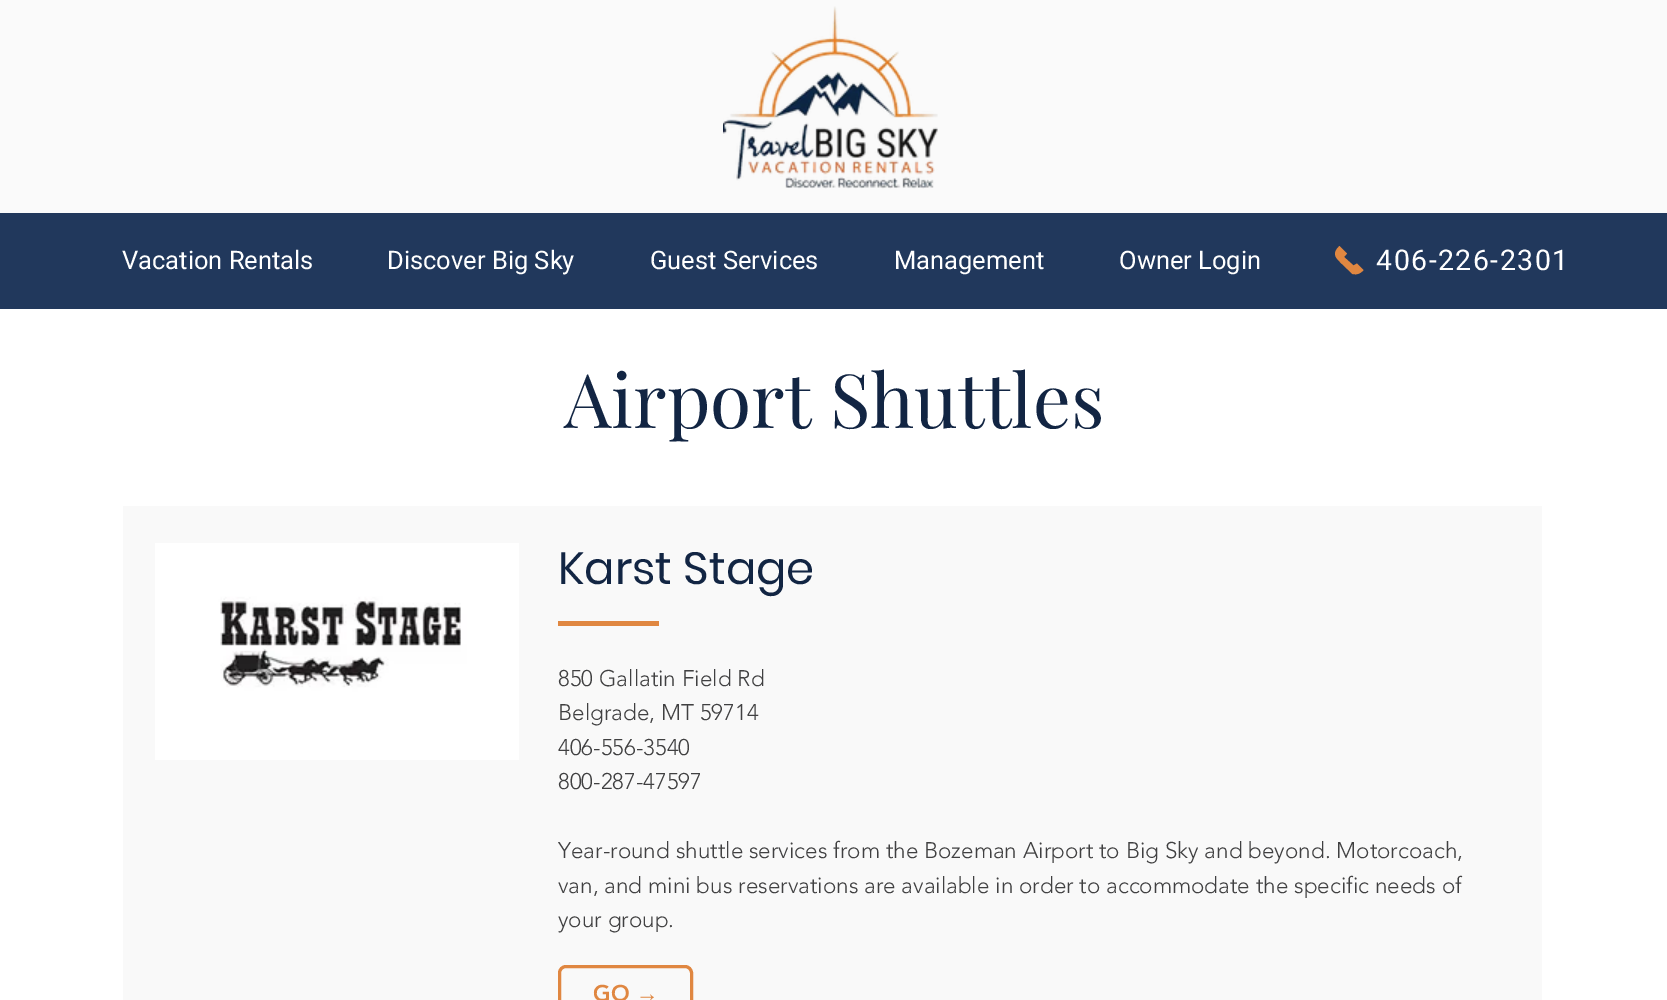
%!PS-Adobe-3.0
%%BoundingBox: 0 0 1667 1000
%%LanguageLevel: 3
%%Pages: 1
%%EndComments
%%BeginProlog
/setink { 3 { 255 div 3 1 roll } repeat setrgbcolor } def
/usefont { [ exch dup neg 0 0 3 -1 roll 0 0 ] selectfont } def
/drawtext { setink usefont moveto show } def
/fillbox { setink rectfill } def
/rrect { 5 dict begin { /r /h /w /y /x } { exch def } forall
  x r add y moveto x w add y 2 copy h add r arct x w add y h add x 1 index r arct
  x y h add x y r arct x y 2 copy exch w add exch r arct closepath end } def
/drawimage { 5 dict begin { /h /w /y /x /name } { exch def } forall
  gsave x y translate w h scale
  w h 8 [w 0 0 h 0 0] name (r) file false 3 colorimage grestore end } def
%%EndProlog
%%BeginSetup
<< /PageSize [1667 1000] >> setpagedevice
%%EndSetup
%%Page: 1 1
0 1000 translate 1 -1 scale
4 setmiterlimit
0 0 1667 1000 255 255 255 fillbox
0 0 1667 213 250 250 250 fillbox
(assets/img1.rgb) 723 6 215 183 drawimage
0 213 1667 96 33 56 92 fillbox
(Vacation Rentals) 122 269 /Roboto-Regular 25.5 255 255 255 drawtext
(Discover Big Sky) 387 269 /Roboto-Regular 25.5 255 255 255 drawtext
(Guest Services) 650 269 /Roboto-Regular 25.5 255 255 255 drawtext
(Management) 894 269 /Roboto-Regular 25.5 255 255 255 drawtext
(Owner Login) 1119 269 /Roboto-Regular 25.5 255 255 255 drawtext
224 135 65 setink
1339.5 246 moveto 1331 254 1336 258 1342.5 264.5 curveto 1352.5 274 lineto 1357.5 275 1360.5 273.5 1363.5 270 curveto 1357 263.5 lineto 1353.5 265.5 lineto 1344 257 lineto 1347 253.5 lineto closepath fill
/Roboto-Regular 28.5 usefont
255 255 255 setink
1376 270 moveto 1.5 0 (406-226-2301) ashow
(Airport Shuttles) 564 428 /PlayfairDisplay-Regular 75 18 37 67 drawtext
123 506 1419 494 249 249 249 fillbox
(assets/img2.rgb) 155 543 364 217 drawimage
(Karst Stage) 558 584 /Poppins-Regular 45 18 37 67 drawtext
558 621 101 5 224 135 65 fillbox
(850 Gallatin Field Rd) 558 686 /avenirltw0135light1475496-Light 22.5 64 64 65 drawtext
(Belgrade, MT 59714) 558 720 /avenirltw0135light1475496-Light 22.5 64 64 65 drawtext
(406-556-3540) 558 755 /avenirltw0135light1475496-Light 22.5 64 64 65 drawtext
(800-287-47597) 558 789 /avenirltw0135light1475496-Light 22.5 64 64 65 drawtext
(Year-round shuttle services from the Bozeman Airport to Big Sky and beyond. Motorcoach,) 558 858 /avenirltw0135light1475496-Light 22.5 64 64 65 drawtext
(van, and mini bus reservations are available in order to accommodate the specific needs of) 558 893 /avenirltw0135light1475496-Light 22.5 64 64 65 drawtext
(your group.) 558 927 /avenirltw0135light1475496-Light 22.5 64 64 65 drawtext
224 135 65 setink
3 setlinewidth
559.5 966.5 132 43 6.5 rrect stroke
(GO) 593 1001 /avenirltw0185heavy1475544-Black 22.5 224 135 65 drawtext
(→) 636 1001 /LiberationSans-Regular 22.5 224 135 65 drawtext
showpage
%%EOF
